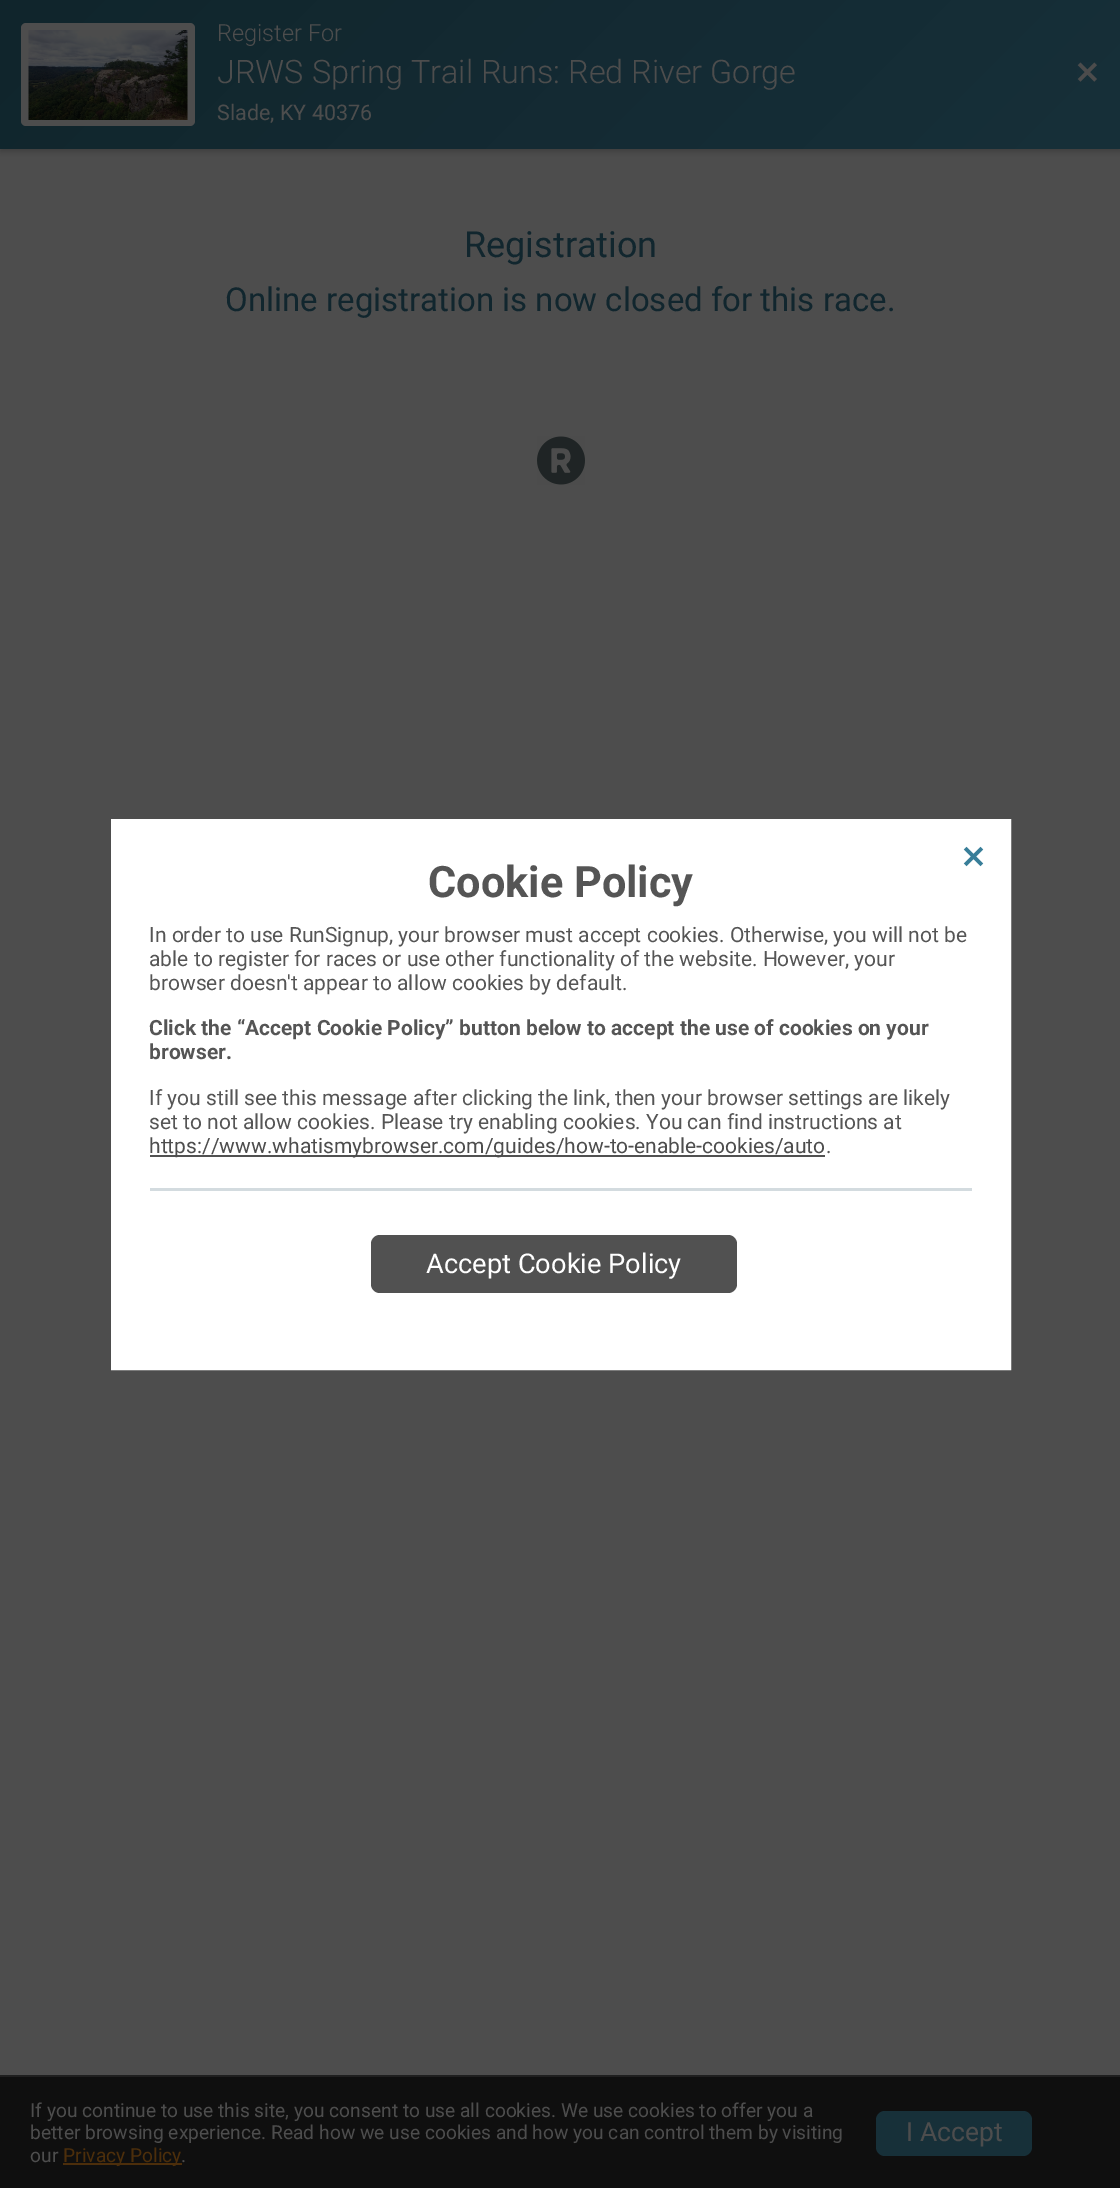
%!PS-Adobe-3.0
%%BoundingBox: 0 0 1120 2188
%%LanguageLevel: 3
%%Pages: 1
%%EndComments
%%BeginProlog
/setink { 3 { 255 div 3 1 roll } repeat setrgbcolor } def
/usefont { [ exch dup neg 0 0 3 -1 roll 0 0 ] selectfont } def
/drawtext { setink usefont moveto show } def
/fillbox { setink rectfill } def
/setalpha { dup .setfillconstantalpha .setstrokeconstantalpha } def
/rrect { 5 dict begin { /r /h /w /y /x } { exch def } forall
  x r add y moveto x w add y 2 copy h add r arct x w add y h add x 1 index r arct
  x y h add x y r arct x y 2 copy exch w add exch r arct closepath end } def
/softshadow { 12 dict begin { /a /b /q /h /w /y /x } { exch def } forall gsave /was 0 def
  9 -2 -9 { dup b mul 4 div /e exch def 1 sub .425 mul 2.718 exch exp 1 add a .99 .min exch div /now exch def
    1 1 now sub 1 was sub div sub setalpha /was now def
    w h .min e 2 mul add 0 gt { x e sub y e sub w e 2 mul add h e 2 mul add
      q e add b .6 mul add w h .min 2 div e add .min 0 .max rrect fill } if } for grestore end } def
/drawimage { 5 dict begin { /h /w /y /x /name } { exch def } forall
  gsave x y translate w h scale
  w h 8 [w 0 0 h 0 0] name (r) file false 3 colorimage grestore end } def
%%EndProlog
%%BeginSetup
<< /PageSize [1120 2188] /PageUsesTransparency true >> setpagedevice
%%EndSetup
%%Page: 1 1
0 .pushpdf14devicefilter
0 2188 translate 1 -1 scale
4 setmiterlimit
0 0 1120 2188 77 77 77 fillbox
0 0 0 setink
0 3 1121 149 0 3 0.18 softshadow
gsave 0 0 moveto 1120 0 lineto 1120 149 lineto 0 149 lineto closepath clip newpath
<< /ShadingType 2 /ColorSpace /DeviceRGB /Coords [878 392 243 -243] /Extend [true true] /Function << /FunctionType 2 /Domain [0 1] /C0 [0.09 0.188 0.224] /C1 [0.063 0.145 0.173] /N 1 >> >> shfill grestore
77 77 77 setink
21 23 174 103 5 rrect fill
(assets/img1.rgb) 28 30 160 90 drawimage
(Register For) 217 41 /Roboto-Light 23.5 77 77 77 drawtext
(JRWS Spring Trail Runs: Red River Gorge) 217 83 /Roboto-Light 32.4 77 77 77 drawtext
(Slade, KY 40376) 217 120 /Roboto-Regular 21.5 77 77 77 drawtext
(assets/img2.rgb) 1077 62 20 20 drawimage
(Registration) 464 257 /Roboto-Regular 36 17 38 46 drawtext
(Online registration is now closed for this race.) 225 311 /Roboto-Regular 33 17 38 46 drawtext
(assets/img3.rgb) 537 436 48 49 drawimage
255 255 255 setink
2 setlinewidth
112 820 898 549 rectstroke
113 821 896 547 255 255 255 fillbox
(assets/img4.rgb) 963 846 21 21 drawimage
(Cookie Policy) 428 897 /Roboto-Bold 43.25 85 85 85 drawtext
(In order to use RunSignup, your browser must accept cookies. Otherwise, you will not be) 149 942 /Roboto-Regular 21 85 85 85 drawtext
(able to register for races or use other functionality of the website. However, your) 149 966 /Roboto-Regular 21 85 85 85 drawtext
(browser doesn't appear to allow cookies by default.) 149 990 /Roboto-Regular 21 85 85 85 drawtext
(Click the “Accept Cookie Policy” button below to accept the use of cookies on your) 149 1035 /Roboto-Bold 21 85 85 85 drawtext
(browser.) 149 1059 /Roboto-Bold 21 85 85 85 drawtext
(If you still see this message after clicking the link, then your browser settings are likely) 149 1105 /Roboto-Regular 21 85 85 85 drawtext
(set to not allow cookies. Please try enabling cookies. You can find instructions at) 149 1129 /Roboto-Regular 21 85 85 85 drawtext
150 1155 675 2 81 81 81 fillbox
(https://www.whatismybrowser.com/guides/how-to-enable-cookies/auto) 149 1153 /Roboto-Regular 21 77 77 77 drawtext
(.) 826 1153 /Roboto-Regular 21 85 85 85 drawtext
150 1188 822 3 211 219 223 fillbox
81 81 81 setink
371 1235 366 58 9 rrect fill
(Accept Cookie Policy) 426 1273 /Roboto-Regular 27.25 255 255 255 drawtext
0 2077 1120 111 15 15 15 fillbox
0 2075 1120 2 31 31 31 fillbox
(If you continue to use this site, you consent to use all cookies. We use cookies to offer you a) 30 2117 /Roboto-Regular 19.2 77 77 77 drawtext
(better browsing experience. Read how we use cookies and how you can control them by visiting) 30 2139 /Roboto-Regular 19.2 77 77 77 drawtext
(our) 30 2162 /Roboto-Regular 19.2 77 77 77 drawtext
63 2163 119 2 76 46 11 fillbox
(Privacy Policy) 63 2162 /Roboto-Regular 19.2 76 46 11 drawtext
(.) 181 2162 /Roboto-Regular 19.2 77 77 77 drawtext
23 48 57 setink
876 2111 156 45 9 rrect fill
(I Accept) 906 2141 /Roboto-Regular 26.5 77 77 77 drawtext
.poppdf14devicefilter showpage
%%EOF
